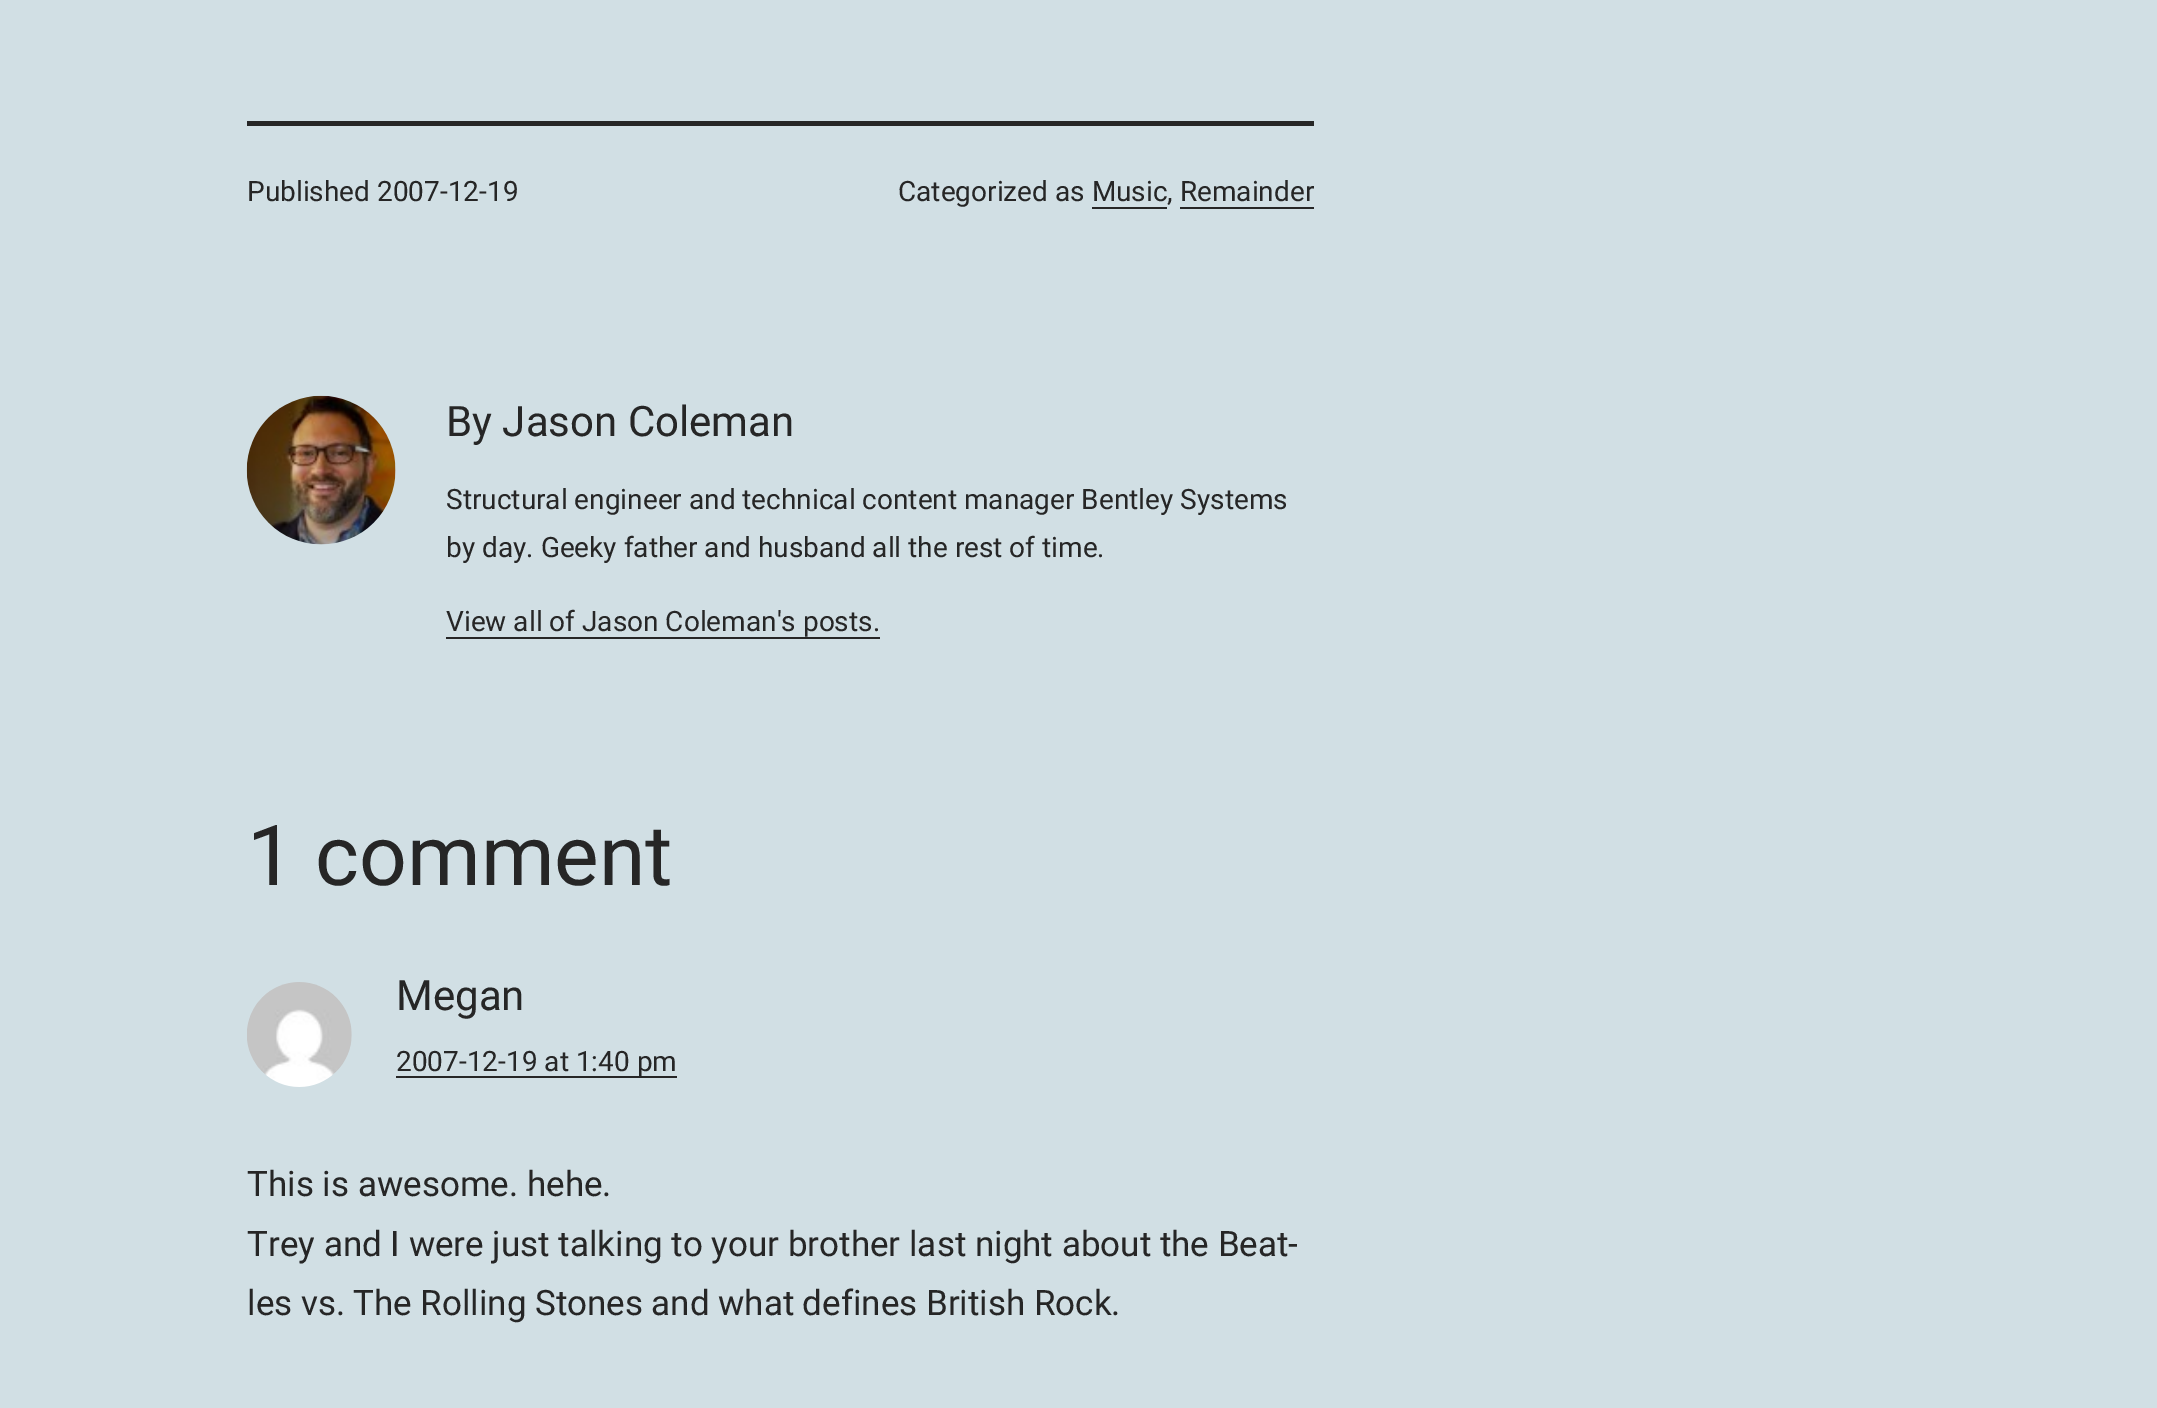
%!PS-Adobe-3.0
%%BoundingBox: 0 0 2157 1408
%%LanguageLevel: 3
%%Pages: 1
%%EndComments
%%BeginProlog
/setink { 3 { 255 div 3 1 roll } repeat setrgbcolor } def
/usefont { [ exch dup neg 0 0 3 -1 roll 0 0 ] selectfont } def
/drawtext { setink usefont moveto show } def
/fillbox { setink rectfill } def
/drawimage { 5 dict begin { /h /w /y /x /name } { exch def } forall
  gsave x y translate w h scale
  w h 8 [w 0 0 h 0 0] name (r) file false 3 colorimage grestore end } def
%%EndProlog
%%BeginSetup
<< /PageSize [2157 1408] >> setpagedevice
%%EndSetup
%%Page: 1 1
0 1408 translate 1 -1 scale
4 setmiterlimit
0 0 2157 1408 209 223 228 fillbox
247 121 1067 5 38 38 38 fillbox
(Published 2007-12-19) 247 201 /Roboto-Regular 28 38 38 38 drawtext
(Categorized as Music, Remainder) 898 201 /Roboto-Regular 28 38 38 38 drawtext
1092 207 75 2 38 38 38 fillbox
1180 207 134 2 38 38 38 fillbox
(assets/img1.rgb) 246 395 150 150 drawimage
(By Jason Coleman) 446 436 /Roboto-Regular 42 38 38 38 drawtext
(Structural engineer and technical content manager Bentley Systems) 446 509 /Roboto-Regular 28 38 38 38 drawtext
(by day. Geeky father and husband all the rest of time.) 446 557 /Roboto-Regular 28 38 38 38 drawtext
(View all of Jason Coleman's posts.) 446 631 /Roboto-Regular 28 38 38 38 drawtext
446 637 434 2 38 38 38 fillbox
(1 comment) 247 885 /Roboto-Regular 84 38 38 38 drawtext
(assets/img2.rgb) 247 982 105 105 drawimage
(Megan) 396 1010 /Roboto-Regular 42 38 38 38 drawtext
396 1076 281 2 38 38 38 fillbox
(2007-12-19 at 1:40 pm) 396 1071 /Roboto-Regular 28 38 38 38 drawtext
(This is awesome. hehe.) 247 1196 /Roboto-Regular 35 38 38 38 drawtext
(Trey and I were just talking to your brother last night about the Beat-) 247 1256 /Roboto-Regular 35 38 38 38 drawtext
247 1315 moveto -0.25 0 32 (les vs. The Rolling Stones and what defines British Rock.) widthshow
showpage
%%EOF
